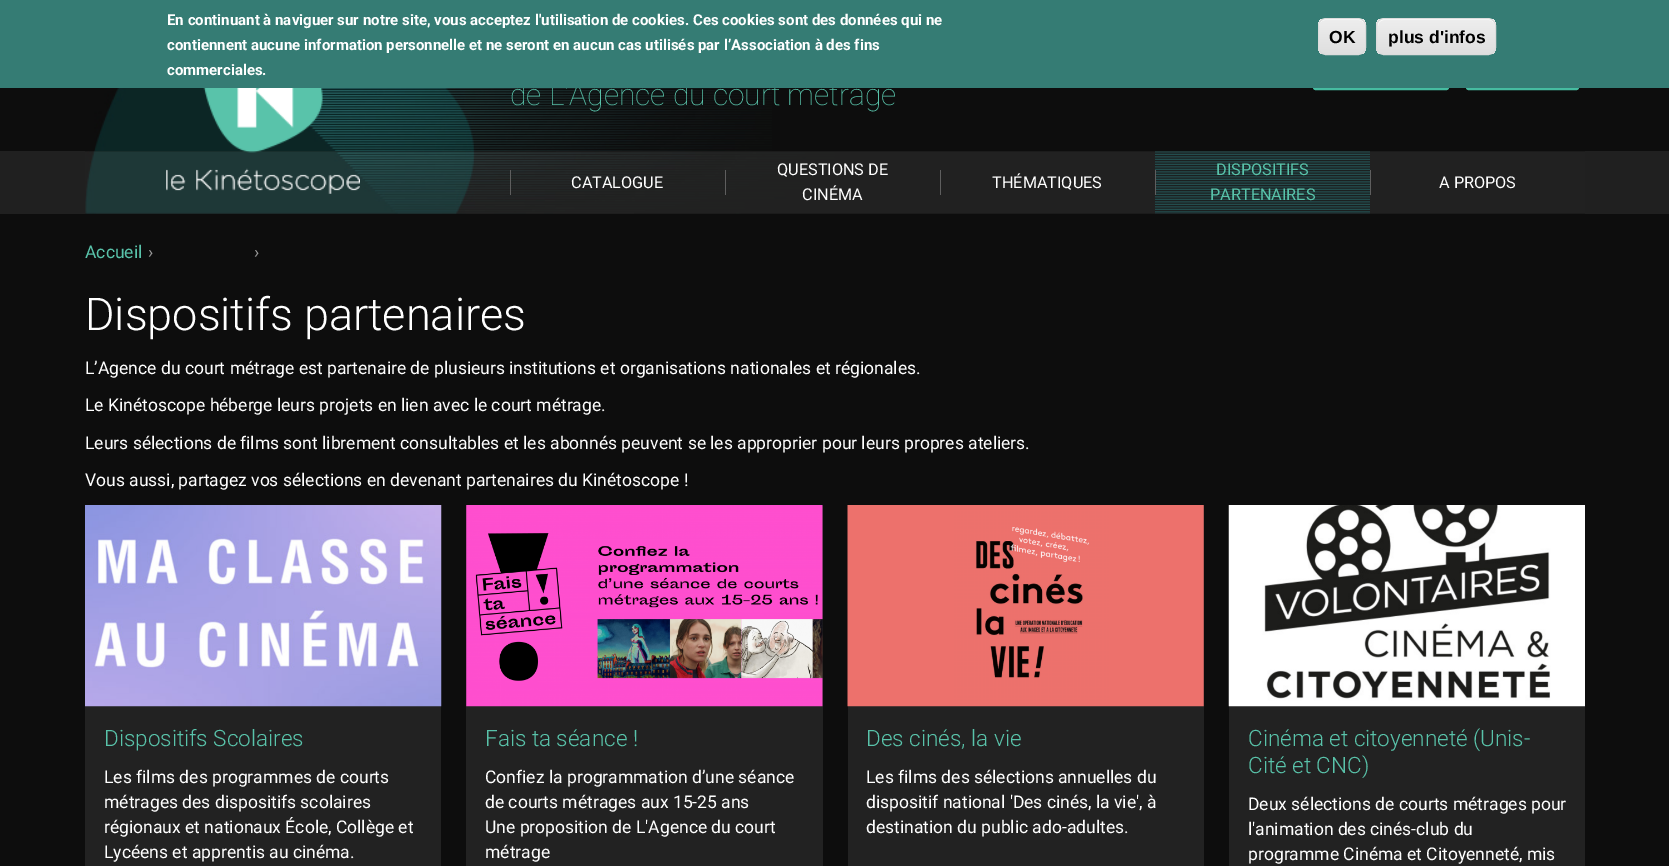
%!PS-Adobe-3.0
%%BoundingBox: 0 0 1669 866
%%LanguageLevel: 3
%%Pages: 1
%%EndComments
%%BeginProlog
/setink { 3 { 255 div 3 1 roll } repeat setrgbcolor } def
/usefont { [ exch dup neg 0 0 3 -1 roll 0 0 ] selectfont } def
/drawtext { setink usefont moveto show } def
/fillbox { setink rectfill } def
/rrect { 5 dict begin { /r /h /w /y /x } { exch def } forall
  x r add y moveto x w add y 2 copy h add r arct x w add y h add x 1 index r arct
  x y h add x y r arct x y 2 copy exch w add exch r arct closepath end } def
/drawimage { 5 dict begin { /h /w /y /x /name } { exch def } forall
  gsave x y translate w h scale
  w h 8 [w 0 0 h 0 0] name (r) file false 3 colorimage grestore end } def
%%EndProlog
%%BeginSetup
<< /PageSize [1669 866] >> setpagedevice
%%EndSetup
%%Page: 1 1
0 866 translate 1 -1 scale
4 setmiterlimit
0 0 1669 866 13 13 13 fillbox
70 188 160 setink
3 setlinewidth
1314.5 46.5 133 42 1 rrect stroke
1467.5 46.5 110 42 1 rrect stroke
(assets/img1.rgb) 94 88 678 64 drawimage
(de L'Agence du court métrage) 510 105 /Roboto-Thin 30 89 195 170 drawtext
0 0 1669 88 53 124 116 fillbox
(En continuant à naviguer sur notre site, vous acceptez l'utilisation de cookies. Ces cookies sont des données qui ne) 167 25 /Roboto-Bold 15 255 255 255 drawtext
(contiennent aucune information personnelle et ne seront en aucun cas utilisés par l’Association à des fins) 167 50 /Roboto-Bold 15 255 255 255 drawtext
(commerciales.) 167 75 /Roboto-Bold 15 255 255 255 drawtext
gsave
1318 18 48 37 8 rrect clip newpath
gsave 1318 19 moveto 1366 19 lineto 1366 54 lineto 1318 54 lineto closepath clip newpath
<< /ShadingType 2 /ColorSpace /DeviceRGB /Coords [1342 19 1342 54] /Extend [true true] /Function << /FunctionType 3 /Domain [0 1] /Functions [<< /FunctionType 2 /Domain [0 1] /C0 [0.929 0.929 0.929] /C1 [0.929 0.929 0.929] /N 1 >> << /FunctionType 2 /Domain [0 1] /C0 [0.929 0.929 0.929] /C1 [0.875 0.875 0.875] /N 1 >>] /Bounds [0.05] /Encode [0 1 0 1] >> >> shfill grestore
grestore
1325 20 moveto 1359 20 lineto 1362 20 1365 23 1365 26 curveto 1365 18 1359 19 1353 19 curveto 1331 19 lineto 1325 19 1319 18 1319 26 curveto 1319 23 1322 20 1325 20 curveto closepath fill
220 220 220 setink
1 setlinewidth
1318.5 18.5 47 36 7.5 rrect stroke
(OK) 1329 43 /LiberationSans-Bold 17.5 0 0 0 drawtext
gsave
1376 18 120 37 8 rrect clip newpath
gsave 1376 19 moveto 1496 19 lineto 1496 54 lineto 1376 54 lineto closepath clip newpath
<< /ShadingType 2 /ColorSpace /DeviceRGB /Coords [1436 19 1436 54] /Extend [true true] /Function << /FunctionType 3 /Domain [0 1] /Functions [<< /FunctionType 2 /Domain [0 1] /C0 [0.929 0.929 0.929] /C1 [0.929 0.929 0.929] /N 1 >> << /FunctionType 2 /Domain [0 1] /C0 [0.929 0.929 0.929] /C1 [0.875 0.875 0.875] /N 1 >>] /Bounds [0.05] /Encode [0 1 0 1] >> >> shfill grestore
grestore
255 255 255 setink
1384 20 moveto 1489 20 lineto 1492 20 1495 23 1495 26 curveto 1495 15 1477 19 1472 19 curveto 1402 19 lineto 1396 19 1378 15 1378 26 curveto 1378 23 1380 20 1384 20 curveto closepath fill
220 220 220 setink
1376.5 18.5 119 36 7.5 rrect stroke
(plus d'infos) 1388 43 /LiberationSans-Bold 17.5 0 0 0 drawtext
(assets/img3.rgb) 85 151 1500 63 drawimage
(assets/img2.rgb) 166 88 194 106 drawimage
32 32 32 setink
1335 151 moveto 1585 151 lineto 1585 214 lineto 1335 214 lineto 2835 214 lineto 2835 151 lineto closepath fill
-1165 151 moveto -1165 214 lineto 335 214 lineto 85 214 lineto 85 151 lineto 335 151 lineto closepath fill
510 170 1 25 94 94 94 fillbox
(CATALOGUE) 571 188 /Roboto-Regular 16.25 255 255 255 drawtext
725 170 1 25 94 94 94 fillbox
(QUESTIONS DE) 777 175 /Roboto-Regular 16.25 255 255 255 drawtext
(CINÉMA) 802 200 /Roboto-Regular 16.25 255 255 255 drawtext
940 170 1 25 94 94 94 fillbox
(THÉMATIQUES) 992 188 /Roboto-Regular 16.25 255 255 255 drawtext
(assets/img4.rgb) 1155 151 215 63 drawimage
1155 170 1 25 94 94 94 fillbox
(DISPOSITIFS) 1216 175 /Roboto-Regular 16.25 89 195 170 drawtext
(PARTENAIRES) 1210 200 /Roboto-Regular 16.25 89 195 170 drawtext
1370 170 1 25 94 94 94 fillbox
(A PROPOS) 1439 188 /Roboto-Regular 16.25 255 255 255 drawtext
(Accueil) 85 258 /Roboto-Regular 17.5 89 195 170 drawtext
(›) 148 258 /Roboto-Regular 17.5 154 154 154 drawtext
(›) 254 258 /Roboto-Regular 17.5 154 154 154 drawtext
(Dispositifs partenaires) 85 330 /Roboto-Light 45 255 255 255 drawtext
(L’Agence du court métrage est partenaire de plusieurs institutions et organisations nationales et régionales.) 85 374 /Roboto-Regular 17.5 255 255 255 drawtext
(Le Kinétoscope héberge leurs projets en lien avec le court métrage.) 85 411 /Roboto-Regular 17.5 255 255 255 drawtext
(Leurs sélections de films sont librement consultables et les abonnés peuvent se les approprier pour leurs propres ateliers.) 85 449 /Roboto-Regular 17.5 255 255 255 drawtext
(Vous aussi, partagez vos sélections en devenant partenaires du Kinétoscope !) 85 486 /Roboto-Regular 17.5 255 255 255 drawtext
85 706 356 160 34 34 34 fillbox
(assets/img5.rgb) 85 505 357 202 drawimage
(Dispositifs Scolaires) 104 746 /Roboto-Light 22.5 89 195 170 drawtext
(Les films des programmes de courts) 104 783 /Roboto-Regular 17.5 255 255 255 drawtext
(métrages des dispositifs scolaires) 104 808 /Roboto-Regular 17.5 255 255 255 drawtext
(régionaux et nationaux École, Collège et) 104 833 /Roboto-Regular 17.5 255 255 255 drawtext
(Lycéens et apprentis au cinéma.) 104 858 /Roboto-Regular 17.5 255 255 255 drawtext
34 34 34 setink
466 505 357 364 2.5 rrect fill
(assets/img6.rgb) 466 505 357 202 drawimage
(Fais ta séance !) 485 746 /Roboto-Light 22.5 89 195 170 drawtext
(Confiez la programmation d’une séance) 485 783 /Roboto-Regular 17.5 255 255 255 drawtext
(de courts métrages aux 15-25 ans) 485 808 /Roboto-Regular 17.5 255 255 255 drawtext
(Une proposition de L'Agence du court) 485 833 /Roboto-Regular 17.5 255 255 255 drawtext
(métrage) 485 858 /Roboto-Regular 17.5 255 255 255 drawtext
34 34 34 setink
848 505 356 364 2.5 rrect fill
(assets/img7.rgb) 847 505 357 202 drawimage
(Des cinés, la vie) 866 746 /Roboto-Light 22.5 89 195 170 drawtext
(Les films des sélections annuelles du) 866 783 /Roboto-Regular 17.5 255 255 255 drawtext
(dispositif national 'Des cinés, la vie', à) 866 808 /Roboto-Regular 17.5 255 255 255 drawtext
(destination du public ado-adultes.) 866 833 /Roboto-Regular 17.5 255 255 255 drawtext
1229 706 356 160 34 34 34 fillbox
(assets/img8.rgb) 1228 505 357 202 drawimage
(Cinéma et citoyenneté \(Unis-) 1248 746 /Roboto-Light 22.5 89 195 170 drawtext
(Cité et CNC\)) 1248 773 /Roboto-Light 22.5 89 195 170 drawtext
(Deux sélections de courts métrages pour) 1248 810 /Roboto-Regular 17.5 255 255 255 drawtext
(l'animation des cinés-club du) 1248 835 /Roboto-Regular 17.5 255 255 255 drawtext
(programme Cinéma et Citoyenneté, mis) 1248 860 /Roboto-Regular 17.5 255 255 255 drawtext
showpage
%%EOF
